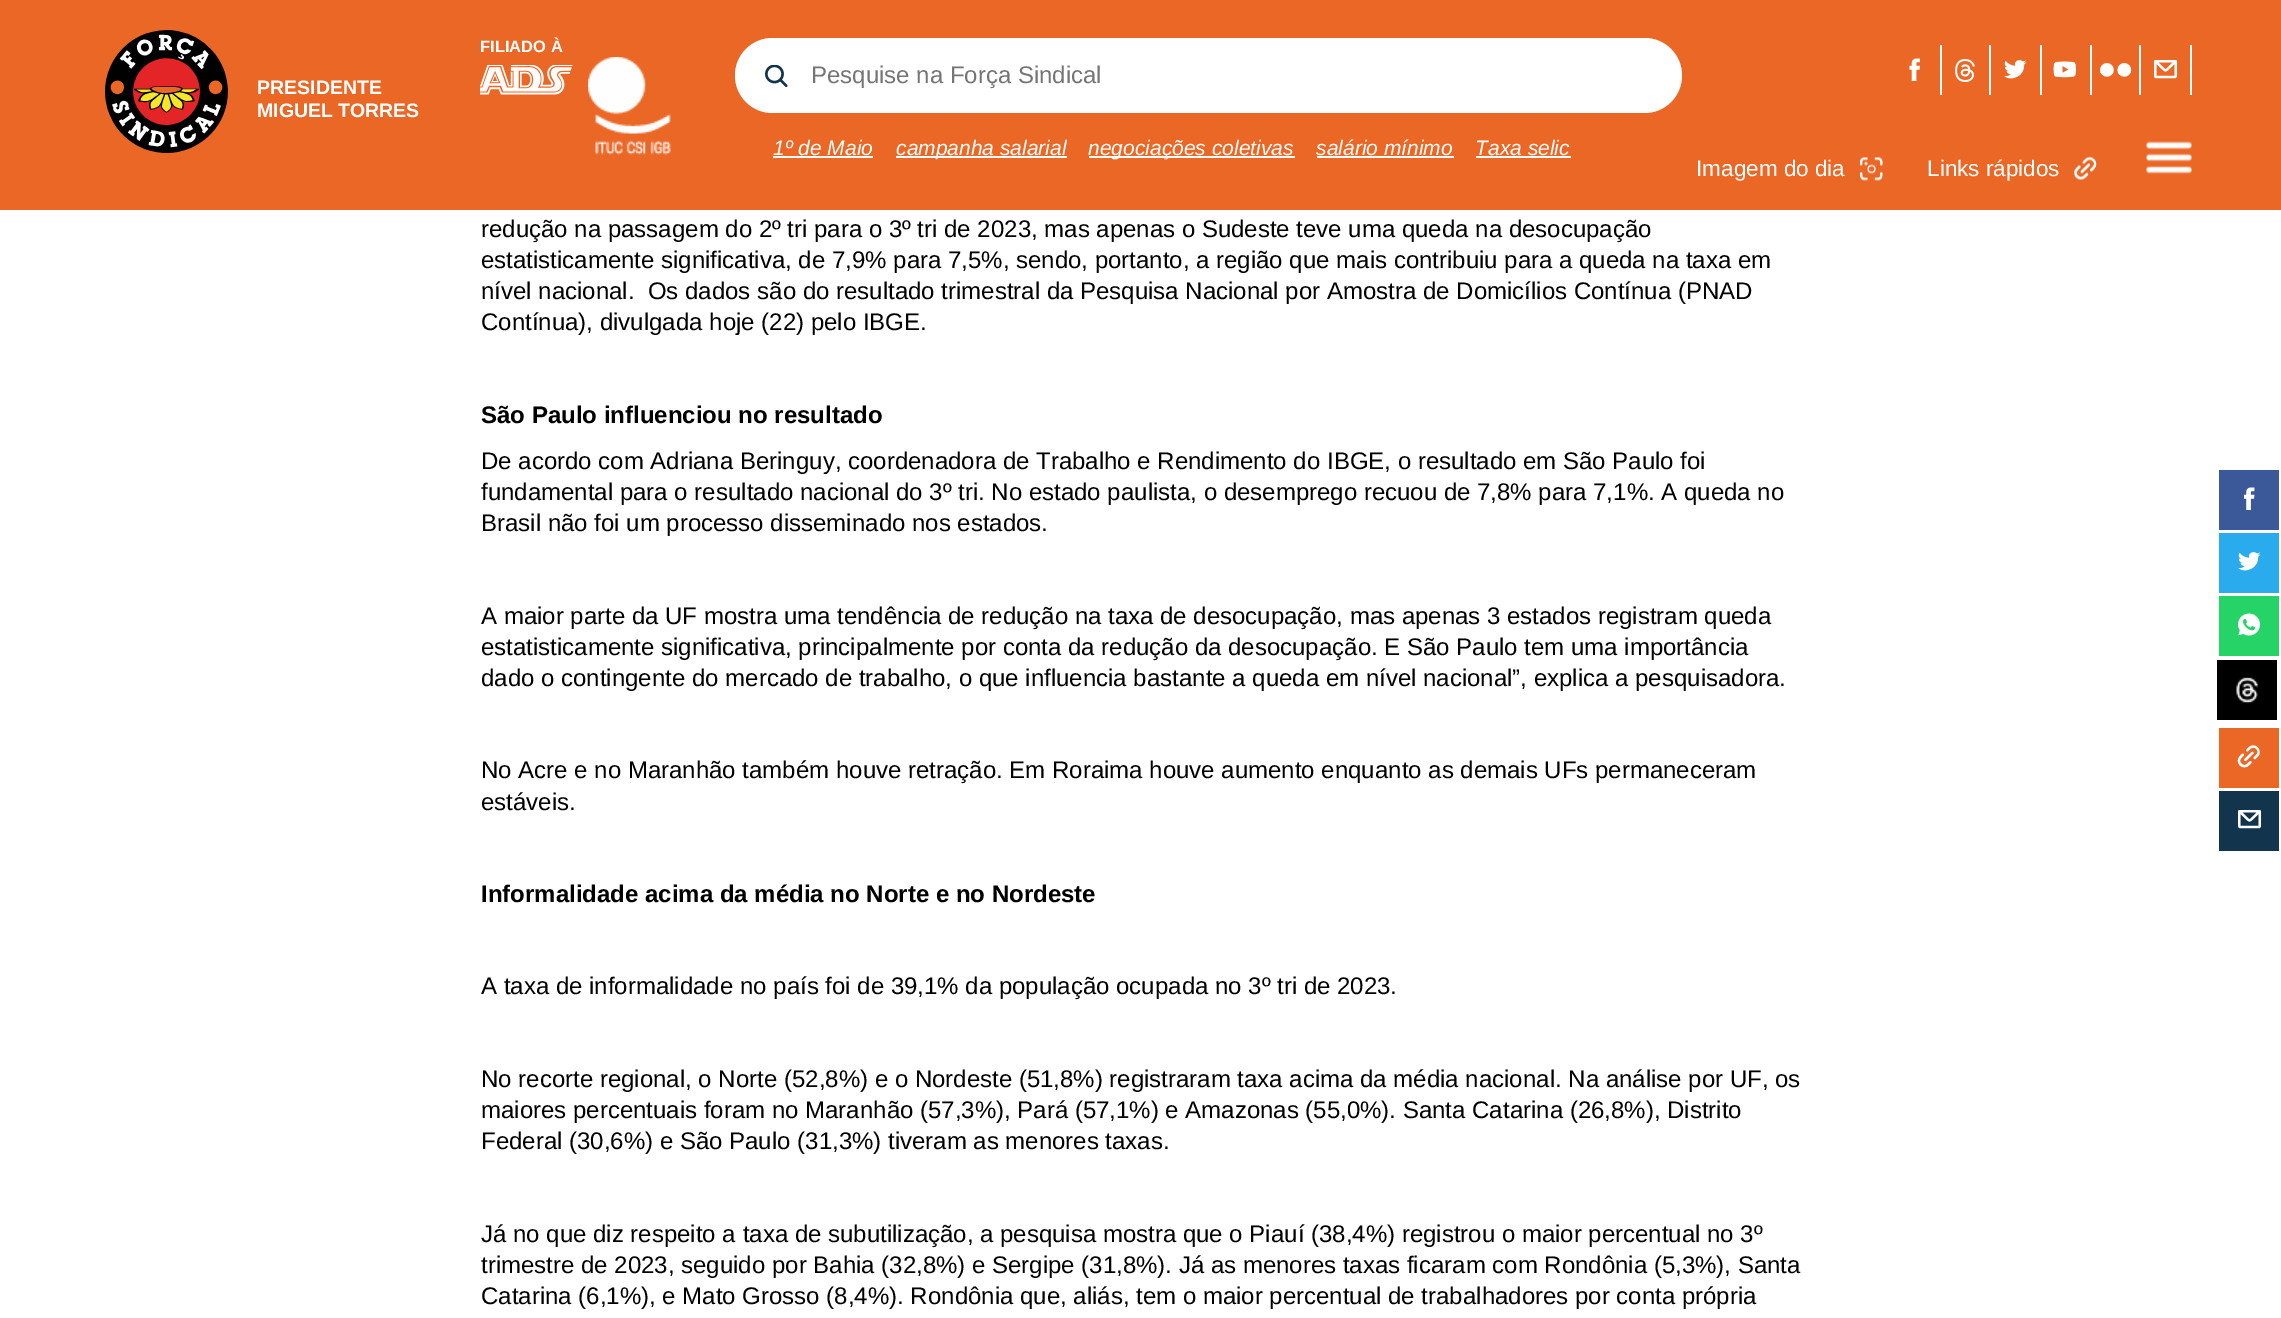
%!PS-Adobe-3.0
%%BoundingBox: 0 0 2281 1318
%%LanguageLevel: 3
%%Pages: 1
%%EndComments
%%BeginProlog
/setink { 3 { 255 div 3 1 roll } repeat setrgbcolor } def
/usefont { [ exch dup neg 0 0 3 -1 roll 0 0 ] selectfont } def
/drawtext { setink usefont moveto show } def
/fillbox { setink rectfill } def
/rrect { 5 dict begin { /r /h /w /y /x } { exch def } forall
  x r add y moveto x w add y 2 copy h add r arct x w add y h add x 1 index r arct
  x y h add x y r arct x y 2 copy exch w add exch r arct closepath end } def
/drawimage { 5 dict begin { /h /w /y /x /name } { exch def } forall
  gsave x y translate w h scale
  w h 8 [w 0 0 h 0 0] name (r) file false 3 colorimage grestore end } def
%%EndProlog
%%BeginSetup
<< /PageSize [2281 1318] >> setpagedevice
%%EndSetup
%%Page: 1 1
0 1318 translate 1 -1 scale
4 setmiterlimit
0 0 2281 1318 255 255 255 fillbox
0 0 2281 210 235 103 38 fillbox
(FILIADO À) 480 52 /LiberationSans-Bold 16.5 255 255 255 drawtext
(assets/img1.rgb) 480 65 93 30 drawimage
(assets/img2.rgb) 588 57 83 98 drawimage
(assets/img3.rgb) 105 30 123 123 drawimage
(PRESIDENTE) 257 94 /LiberationSans-Bold 19.5 255 255 255 drawtext
(MIGUEL TORRES) 257 117 /LiberationSans-Bold 19.5 255 255 255 drawtext
735 38 947 75 37.5 rrect fill
(assets/img4.rgb) 765 65 23 22 drawimage
(Pesquise na Força Sindical) 811 83 /LiberationSans-Regular 24 117 117 117 drawtext
(1º de Maio) 773 155 /LiberationSans-Italic 21 255 255 255 drawtext
773 156 100 2 255 255 255 fillbox
896 156 171 2 255 255 255 fillbox
(campanha salarial) 896 155 /LiberationSans-Italic 21 255 255 255 drawtext
1089 156 206 2 255 255 255 fillbox
(negociações coletivas) 1088 155 /LiberationSans-Italic 21 255 255 255 drawtext
(salário mínimo) 1316 155 /LiberationSans-Italic 21 255 255 255 drawtext
1317 156 137 2 255 255 255 fillbox
(Taxa selic) 1475 155 /LiberationSans-Italic 21 255 255 255 drawtext
1476 156 95 2 255 255 255 fillbox
1940 45 2 50 255 255 255 fillbox
(assets/img5.rgb) 1909 58 11 23 drawimage
1989 45 2 50 255 255 255 fillbox
(assets/img6.rgb) 1955 59 20 23 drawimage
2040 45 2 50 255 255 255 fillbox
(assets/img7.rgb) 2004 60 23 19 drawimage
2090 45 2 50 255 255 255 fillbox
(assets/img8.rgb) 2053 61 23 17 drawimage
2139 45 2 50 255 255 255 fillbox
(assets/img9.rgb) 2100 63 32 14 drawimage
2190 45 2 50 255 255 255 fillbox
(assets/img10.rgb) 2154 60 24 19 drawimage
(Imagem do dia) 1696 176 /LiberationSans-Regular 22.5 255 255 255 drawtext
(assets/img11.rgb) 1860 157 23 24 drawimage
(Links rápidos) 1927 176 /LiberationSans-Regular 22.5 255 255 255 drawtext
(assets/img12.rgb) 2074 156 23 24 drawimage
(assets/img13.rgb) 2146 141 46 33 drawimage
(redução na passagem do 2º tri para o 3º tri de 2023, mas apenas o Sudeste teve uma queda na desocupação) 481 237 /LiberationSans-Regular 24 0 0 0 drawtext
(estatisticamente significativa, de 7,9% para 7,5%, sendo, portanto, a região que mais contribuiu para a queda na taxa em) 481 268 /LiberationSans-Regular 24 0 0 0 drawtext
(nível nacional.  Os dados são do resultado trimestral da Pesquisa Nacional por Amostra de Domicílios Contínua \(PNAD) 481 299 /LiberationSans-Regular 24 0 0 0 drawtext
(Contínua\), divulgada hoje \(22\) pelo IBGE.) 481 330 /LiberationSans-Regular 24 0 0 0 drawtext
(São Paulo influenciou no resultado) 481 423 /LiberationSans-Bold 24 0 0 0 drawtext
(De acordo com Adriana Beringuy, coordenadora de Trabalho e Rendimento do IBGE, o resultado em São Paulo foi) 481 469 /LiberationSans-Regular 24 0 0 0 drawtext
(fundamental para o resultado nacional do 3º tri. No estado paulista, o desemprego recuou de 7,8% para 7,1%. A queda no) 481 500 /LiberationSans-Regular 24 0 0 0 drawtext
(Brasil não foi um processo disseminado nos estados.) 481 531 /LiberationSans-Regular 24 0 0 0 drawtext
(A maior parte da UF mostra uma tendência de redução na taxa de desocupação, mas apenas 3 estados registram queda) 481 624 /LiberationSans-Regular 24 0 0 0 drawtext
(estatisticamente significativa, principalmente por conta da redução da desocupação. E São Paulo tem uma importância) 481 655 /LiberationSans-Regular 24 0 0 0 drawtext
(dado o contingente do mercado de trabalho, o que influencia bastante a queda em nível nacional”, explica a pesquisadora.) 481 686 /LiberationSans-Regular 24 0 0 0 drawtext
(No Acre e no Maranhão também houve retração. Em Roraima houve aumento enquanto as demais UFs permaneceram) 481 778 /LiberationSans-Regular 24 0 0 0 drawtext
(estáveis.) 481 810 /LiberationSans-Regular 24 0 0 0 drawtext
(Informalidade acima da média no Norte e no Nordeste) 481 902 /LiberationSans-Bold 24 0 0 0 drawtext
(A taxa de informalidade no país foi de 39,1% da população ocupada no 3º tri de 2023.) 481 994 /LiberationSans-Regular 24 0 0 0 drawtext
(No recorte regional, o Norte \(52,8%\) e o Nordeste \(51,8%\) registraram taxa acima da média nacional. Na análise por UF, os) 481 1087 /LiberationSans-Regular 24 0 0 0 drawtext
(maiores percentuais foram no Maranhão \(57,3%\), Pará \(57,1%\) e Amazonas \(55,0%\). Santa Catarina \(26,8%\), Distrito) 481 1118 /LiberationSans-Regular 24 0 0 0 drawtext
(Federal \(30,6%\) e São Paulo \(31,3%\) tiveram as menores taxas.) 481 1149 /LiberationSans-Regular 24 0 0 0 drawtext
(Já no que diz respeito a taxa de subutilização, a pesquisa mostra que o Piauí \(38,4%\) registrou o maior percentual no 3º) 481 1242 /LiberationSans-Regular 24 0 0 0 drawtext
(trimestre de 2023, seguido por Bahia \(32,8%\) e Sergipe \(31,8%\). Já as menores taxas ficaram com Rondônia \(5,3%\), Santa) 481 1273 /LiberationSans-Regular 24 0 0 0 drawtext
(Catarina \(6,1%\), e Mato Grosso \(8,4%\). Rondônia que, aliás, tem o maior percentual de trabalhadores por conta própria) 481 1304 /LiberationSans-Regular 24 0 0 0 drawtext
2219 470 60 60 59 89 152 fillbox
(assets/img14.rgb) 2244 487 11 23 drawimage
2219 533 60 60 41 171 237 fillbox
(assets/img15.rgb) 2238 552 23 19 drawimage
2219 596 60 60 37 211 102 fillbox
(assets/img16.rgb) 2238 613 22 23 drawimage
(assets/img17.rgb) 2217 660 60 60 drawimage
2219 728 60 60 235 103 38 fillbox
(assets/img18.rgb) 2237 745 23 23 drawimage
2219 791 60 60 18 52 77 fillbox
(assets/img19.rgb) 2238 810 24 19 drawimage
showpage
%%EOF
